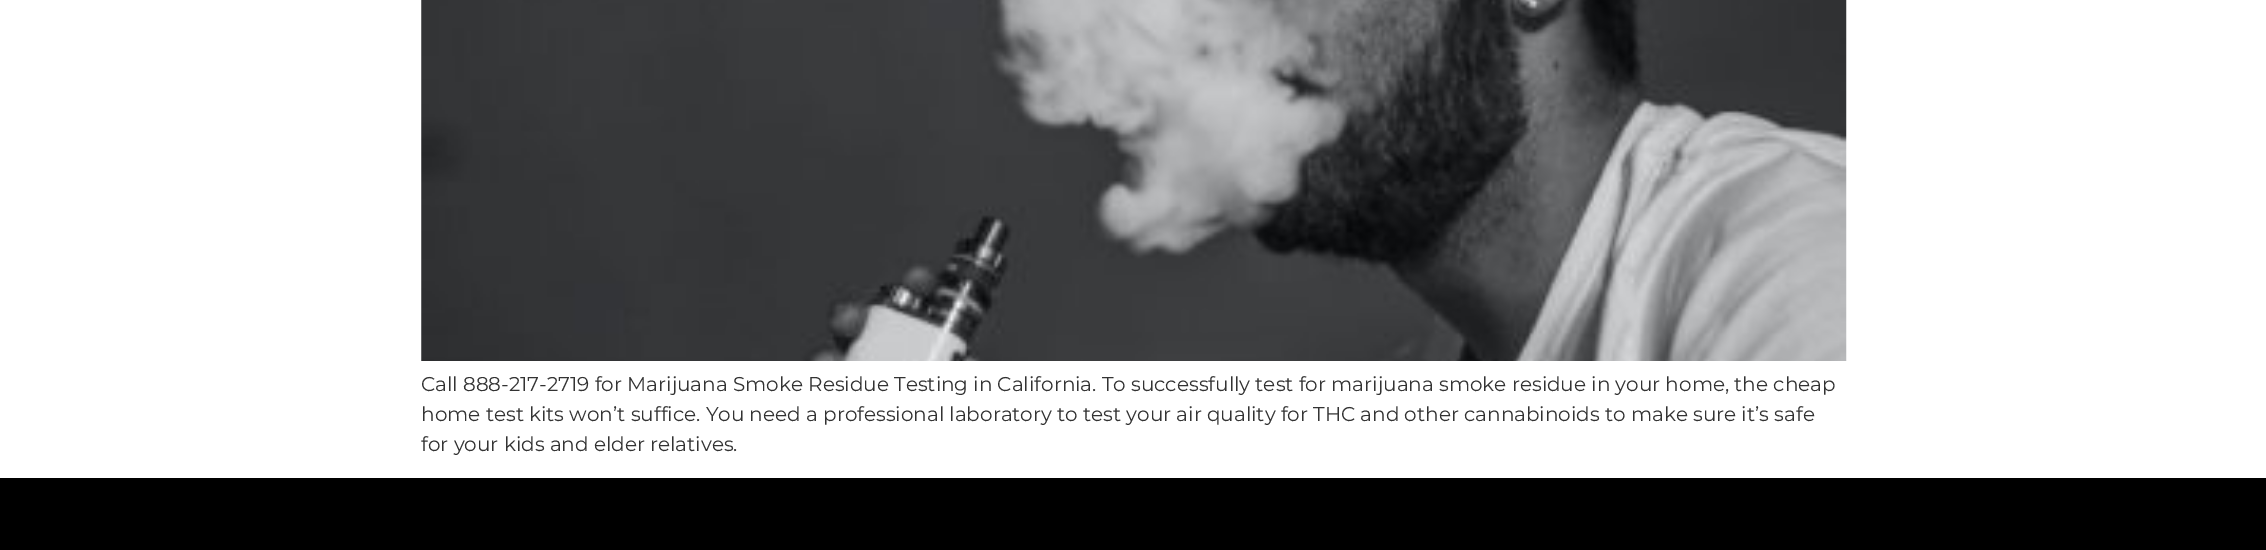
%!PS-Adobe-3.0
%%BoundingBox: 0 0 2266 550
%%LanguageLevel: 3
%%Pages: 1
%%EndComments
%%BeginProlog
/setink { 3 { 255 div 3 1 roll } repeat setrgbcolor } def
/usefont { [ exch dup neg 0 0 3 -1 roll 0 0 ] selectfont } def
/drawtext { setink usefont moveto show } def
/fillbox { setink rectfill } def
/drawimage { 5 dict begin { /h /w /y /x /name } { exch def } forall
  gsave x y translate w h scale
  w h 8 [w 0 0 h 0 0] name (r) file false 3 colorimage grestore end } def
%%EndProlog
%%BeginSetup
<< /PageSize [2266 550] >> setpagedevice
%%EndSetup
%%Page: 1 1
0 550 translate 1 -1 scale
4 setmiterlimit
0 0 2266 550 255 255 255 fillbox
(assets/img1.rgb) 421 0 1426 361 drawimage
(Call 888-217-2719 for Marijuana Smoke Residue Testing in California. To successfully test for marijuana smoke residue in your home, the cheap) 421 391 /Montserrat-Regular 20 51 51 51 drawtext
(home test kits won’t suffice. You need a professional laboratory to test your air quality for THC and other cannabinoids to make sure it’s safe) 421 421 /Montserrat-Regular 20 51 51 51 drawtext
(for your kids and elder relatives.) 421 451 /Montserrat-Regular 20 51 51 51 drawtext
0 478 2266 72 0 0 0 fillbox
showpage
%%EOF
